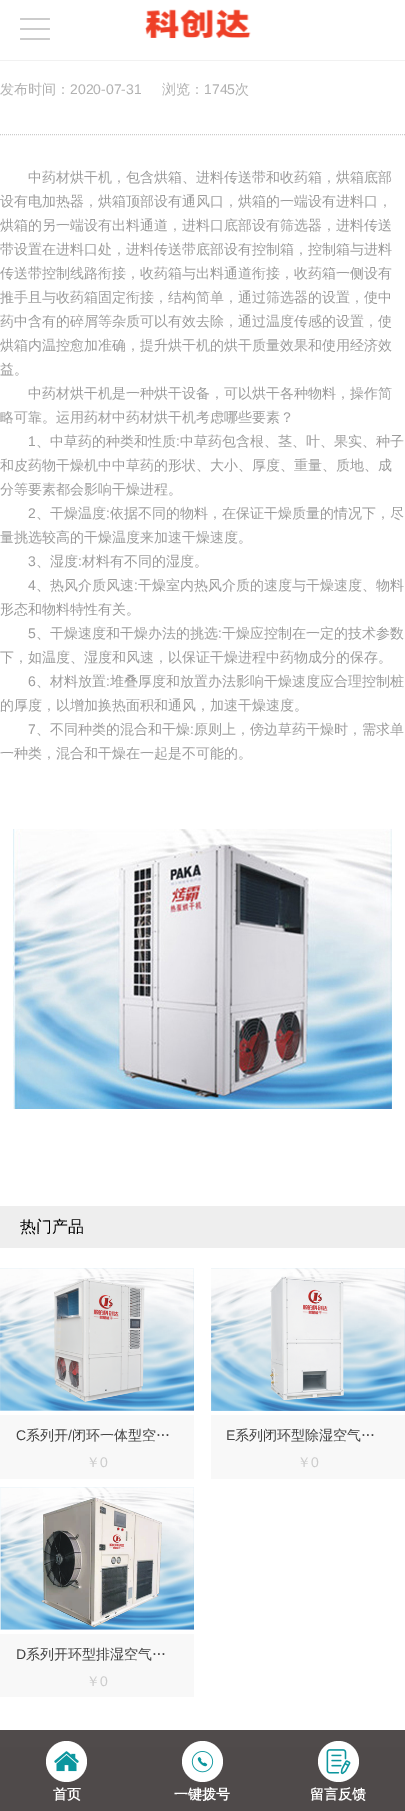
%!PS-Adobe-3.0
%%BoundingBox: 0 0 405 1811
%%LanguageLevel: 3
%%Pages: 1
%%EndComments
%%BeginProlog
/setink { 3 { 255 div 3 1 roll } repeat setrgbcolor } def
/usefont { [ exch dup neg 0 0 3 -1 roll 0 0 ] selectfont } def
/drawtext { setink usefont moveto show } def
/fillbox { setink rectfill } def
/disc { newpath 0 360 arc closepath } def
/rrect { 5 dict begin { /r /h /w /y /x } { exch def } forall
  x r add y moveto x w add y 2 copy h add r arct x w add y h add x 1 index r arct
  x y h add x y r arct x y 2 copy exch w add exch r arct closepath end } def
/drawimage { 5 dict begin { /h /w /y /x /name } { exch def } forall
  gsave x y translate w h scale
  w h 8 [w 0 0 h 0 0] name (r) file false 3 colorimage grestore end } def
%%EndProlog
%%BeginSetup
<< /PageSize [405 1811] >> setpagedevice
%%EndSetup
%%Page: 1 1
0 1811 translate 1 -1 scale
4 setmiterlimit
0 0 405 1811 255 255 255 fillbox
0 1730 405 17 80 75 75 fillbox
0 60 405 1 241 241 241 fillbox
204 204 204 setink
20 18 30 2 1 rrect fill
20 28 30 2 1 rrect fill
20 38 30 2 1 rrect fill
(assets/img1.rgb) 145 9 106 30 drawimage
[1 1] 0 setdash
0 134.5 moveto 405 134.5 lineto stroke
(发布时间：) 0 94 /WenQuanYiZenHei-Medium 14 177 177 177 drawtext
(2020-07-31) 70 94 /LiberationSans-Regular 14 177 177 177 drawtext
(浏览：) 162 94 /WenQuanYiZenHei-Medium 14 177 177 177 drawtext
(1745) 204 94 /LiberationSans-Regular 14 177 177 177 drawtext
(次) 235 94 /WenQuanYiZenHei-Medium 14 177 177 177 drawtext
(中药材烘干机，包含烘箱、进料传送带和收药箱，烘箱底部) 28 182 /WenQuanYiZenHei-Medium 14 156 156 156 drawtext
(设有电加热器，烘箱顶部设有通风口，烘箱的一端设有进料口，) 0 206 /WenQuanYiZenHei-Medium 14 156 156 156 drawtext
(烘箱的另一端设有出料通道，进料口底部设有筛选器，进料传送) 0 230 /WenQuanYiZenHei-Medium 14 156 156 156 drawtext
(带设置在进料口处，进料传送带底部设有控制箱，控制箱与进料) 0 254 /WenQuanYiZenHei-Medium 14 156 156 156 drawtext
(传送带控制线路衔接，收药箱与出料通道衔接，收药箱一侧设有) 0 278 /WenQuanYiZenHei-Medium 14 156 156 156 drawtext
(推手且与收药箱固定衔接，结构简单，通过筛选器的设置，使中) 0 302 /WenQuanYiZenHei-Medium 14 156 156 156 drawtext
(药中含有的碎屑等杂质可以有效去除，通过温度传感的设置，使) 0 326 /WenQuanYiZenHei-Medium 14 156 156 156 drawtext
(烘箱内温控愈加准确，提升烘干机的烘干质量效果和使用经济效) 0 350 /WenQuanYiZenHei-Medium 14 156 156 156 drawtext
(益。) 0 374 /WenQuanYiZenHei-Medium 14 156 156 156 drawtext
(中药材烘干机是一种烘干设备，可以烘干各种物料，操作简) 28 398 /WenQuanYiZenHei-Medium 14 156 156 156 drawtext
(略可靠。运用药材中药材烘干机考虑哪些要素？) 0 422 /WenQuanYiZenHei-Medium 14 156 156 156 drawtext
(1) 28 446 /LiberationSans-Regular 14 156 156 156 drawtext
(、中草药的种类和性质) 36 446 /WenQuanYiZenHei-Medium 14 156 156 156 drawtext
(:) 176 446 /LiberationSans-Regular 14 156 156 156 drawtext
(中草药包含根、茎、叶、果实、种子) 180 446 /WenQuanYiZenHei-Medium 14 156 156 156 drawtext
(和皮药物干燥机中中草药的形状、大小、厚度、重量、质地、成) 0 470 /WenQuanYiZenHei-Medium 14 156 156 156 drawtext
(分等要素都会影响干燥进程。) 0 494 /WenQuanYiZenHei-Medium 14 156 156 156 drawtext
(2) 28 518 /LiberationSans-Regular 14 156 156 156 drawtext
(、干燥温度) 36 518 /WenQuanYiZenHei-Medium 14 156 156 156 drawtext
(:) 106 518 /LiberationSans-Regular 14 156 156 156 drawtext
(依据不同的物料，在保证干燥质量的情况下，尽) 110 518 /WenQuanYiZenHei-Medium 14 156 156 156 drawtext
(量挑选较高的干燥温度来加速干燥速度。) 0 542 /WenQuanYiZenHei-Medium 14 156 156 156 drawtext
(3) 28 566 /LiberationSans-Regular 14 156 156 156 drawtext
(、湿度) 36 566 /WenQuanYiZenHei-Medium 14 156 156 156 drawtext
(:) 78 566 /LiberationSans-Regular 14 156 156 156 drawtext
(材料有不同的湿度。) 82 566 /WenQuanYiZenHei-Medium 14 156 156 156 drawtext
(4) 28 590 /LiberationSans-Regular 14 156 156 156 drawtext
(、热风介质风速) 36 590 /WenQuanYiZenHei-Medium 14 156 156 156 drawtext
(:) 134 590 /LiberationSans-Regular 14 156 156 156 drawtext
(干燥室内热风介质的速度与干燥速度、物料) 138 590 /WenQuanYiZenHei-Medium 14 156 156 156 drawtext
(形态和物料特性有关。) 0 614 /WenQuanYiZenHei-Medium 14 156 156 156 drawtext
(5) 28 638 /LiberationSans-Regular 14 156 156 156 drawtext
(、干燥速度和干燥办法的挑选) 36 638 /WenQuanYiZenHei-Medium 14 156 156 156 drawtext
(:) 218 638 /LiberationSans-Regular 14 156 156 156 drawtext
(干燥应控制在一定的技术参数) 222 638 /WenQuanYiZenHei-Medium 14 156 156 156 drawtext
(下，如温度、湿度和风速，以保证干燥进程中药物成分的保存。) 0 662 /WenQuanYiZenHei-Medium 14 156 156 156 drawtext
(6) 28 686 /LiberationSans-Regular 14 156 156 156 drawtext
(、材料放置) 36 686 /WenQuanYiZenHei-Medium 14 156 156 156 drawtext
(:) 106 686 /LiberationSans-Regular 14 156 156 156 drawtext
(堆叠厚度和放置办法影响干燥速度应合理控制桩) 110 686 /WenQuanYiZenHei-Medium 14 156 156 156 drawtext
(的厚度，以增加换热面积和通风，加速干燥速度。) 0 710 /WenQuanYiZenHei-Medium 14 156 156 156 drawtext
(7) 28 734 /LiberationSans-Regular 14 156 156 156 drawtext
(、不同种类的混合和干燥) 36 734 /WenQuanYiZenHei-Medium 14 156 156 156 drawtext
(:) 190 734 /LiberationSans-Regular 14 156 156 156 drawtext
(原则上，傍边草药干燥时，需求单) 194 734 /WenQuanYiZenHei-Medium 14 156 156 156 drawtext
(一种类，混合和干燥在一起是不可能的。) 0 758 /WenQuanYiZenHei-Medium 14 156 156 156 drawtext
(assets/img2.rgb) 13 829 379 280 drawimage
0 1206 405 42 238 238 238 fillbox
(热门产品) 20 1232 /WenQuanYiZenHei-Medium 16 0 0 0 drawtext
(assets/img3.rgb) 0 1268 194 143 drawimage
0 1415 194 64 248 248 248 fillbox
(C) 16 1440 /LiberationSans-Regular 14 68 68 68 drawtext
(系列开) 26 1440 /WenQuanYiZenHei-Medium 14 68 68 68 drawtext
(/) 68 1440 /LiberationSans-Regular 14 68 68 68 drawtext
(闭环一体型空…) 72 1440 /WenQuanYiZenHei-Medium 14 68 68 68 drawtext
(￥) 86 1467 /WenQuanYiZenHei-Medium 14 204 204 204 drawtext
(0) 100 1467 /LiberationSans-Regular 14 204 204 204 drawtext
(assets/img4.rgb) 211 1268 194 143 drawimage
211 1415 194 64 248 248 248 fillbox
(E) 226 1440 /LiberationSans-Regular 14 68 68 68 drawtext
(系列闭环型除湿空气…) 235 1440 /WenQuanYiZenHei-Medium 14 68 68 68 drawtext
(￥) 297 1467 /WenQuanYiZenHei-Medium 14 204 204 204 drawtext
(0) 311 1467 /LiberationSans-Regular 14 204 204 204 drawtext
(assets/img5.rgb) 0 1487 194 143 drawimage
0 1634 194 63 248 248 248 fillbox
(D) 16 1659 /LiberationSans-Regular 14 68 68 68 drawtext
(系列开环型排湿空气…) 26 1659 /WenQuanYiZenHei-Medium 14 68 68 68 drawtext
(￥) 86 1686 /WenQuanYiZenHei-Medium 14 204 204 204 drawtext
(0) 100 1686 /LiberationSans-Regular 14 204 204 204 drawtext
0 1747 405 64 79 74 74 fillbox
255 255 255 setink
66.5 1761.5 20.5 disc fill
(assets/img6.rgb) 54 1751 25 21 drawimage
(首页) 53 1799 /WenQuanYiZenHei-Bold 14 255 255 255 drawtext
202.5 1761.5 20.5 disc fill
(assets/img7.rgb) 191 1751 23 22 drawimage
(一键拨号) 174 1799 /WenQuanYiZenHei-Bold 14 255 255 255 drawtext
338.5 1761.5 20.5 disc fill
(assets/img8.rgb) 326 1749 25 26 drawimage
(留言反馈) 310 1799 /WenQuanYiZenHei-Bold 14 255 255 255 drawtext
showpage
%%EOF
